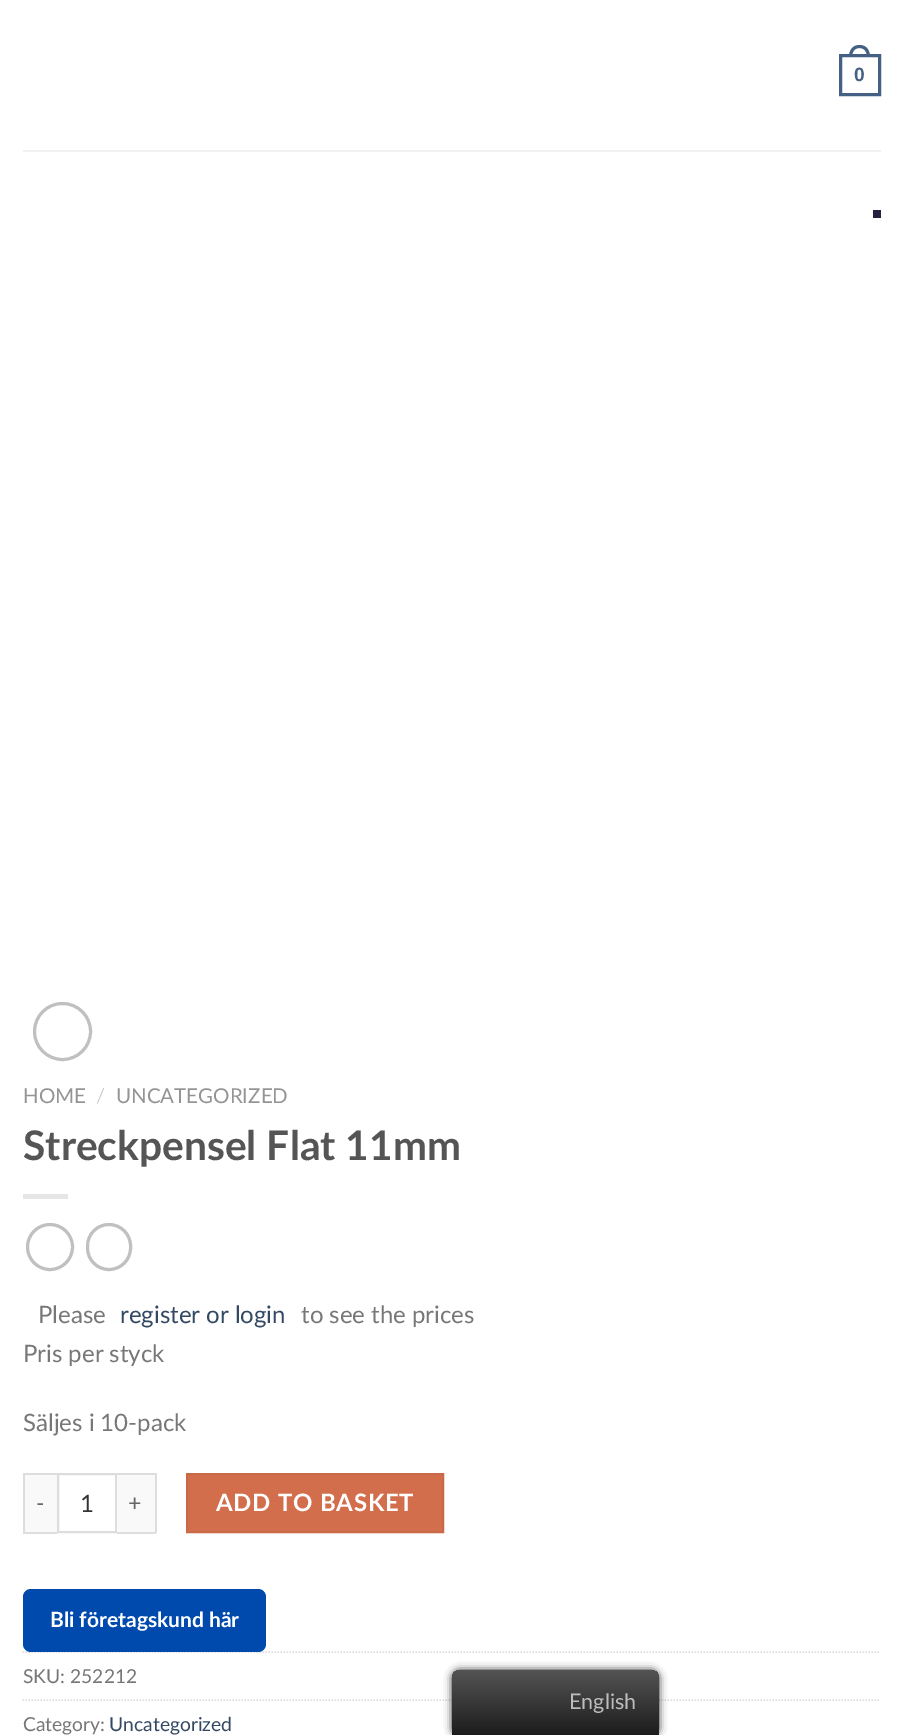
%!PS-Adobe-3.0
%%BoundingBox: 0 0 903 1735
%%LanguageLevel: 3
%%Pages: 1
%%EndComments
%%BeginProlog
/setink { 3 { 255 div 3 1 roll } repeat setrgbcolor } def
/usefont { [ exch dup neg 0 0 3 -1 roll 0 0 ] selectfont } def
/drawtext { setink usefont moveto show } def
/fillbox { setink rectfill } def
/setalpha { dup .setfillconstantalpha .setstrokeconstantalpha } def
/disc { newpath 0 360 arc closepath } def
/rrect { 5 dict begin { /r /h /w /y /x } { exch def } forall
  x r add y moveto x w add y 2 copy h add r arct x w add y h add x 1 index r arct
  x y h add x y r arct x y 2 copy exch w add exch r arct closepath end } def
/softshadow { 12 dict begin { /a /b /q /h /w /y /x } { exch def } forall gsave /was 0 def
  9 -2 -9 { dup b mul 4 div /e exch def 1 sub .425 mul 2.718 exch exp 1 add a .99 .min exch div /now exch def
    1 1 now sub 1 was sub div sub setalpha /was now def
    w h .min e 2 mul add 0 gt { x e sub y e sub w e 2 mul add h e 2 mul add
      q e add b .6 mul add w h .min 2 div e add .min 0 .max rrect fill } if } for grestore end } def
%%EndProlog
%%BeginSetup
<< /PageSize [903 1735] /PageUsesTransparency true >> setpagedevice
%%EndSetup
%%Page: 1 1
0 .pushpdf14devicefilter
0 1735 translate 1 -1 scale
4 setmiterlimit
0 0 903 1735 255 255 255 fillbox
68 96 132 setink
3 setlinewidth
840.5 55.5 39 39 rectstroke
859.5 45 moveto 866.5 45 870 50.5 870 57 curveto 849 57 lineto 849 50.5 852.5 45 859.5 45 curveto closepath 859.5 48 moveto 865 48 867 52.5 867 57 curveto 852 57 lineto 852 52.5 854 48 859.5 48 curveto closepath eofill
(0) 854 81 /LiberationSans-Bold 19.25 68 96 132 drawtext
23 150 858 2 241 241 241 fillbox
873 210 8 8 38 31 65 fillbox
192 192 192 setink
62.5 1031.5 28 disc stroke
(HOME) 23 1103 /Lato-Regular 20.5 148 148 148 drawtext
(/) 96 1103 /Lato-Light 20.5 178 178 178 drawtext
(UNCATEGORIZED) 116 1103 /Lato-Regular 20.5 148 148 148 drawtext
(Streckpensel Flat 11mm) 23 1160 /Lato-Bold 40.75 85 85 85 drawtext
23 1194 45 5 230 230 230 fillbox
192 192 192 setink
50 1247 22.5 disc stroke
87.5 1224.5 43 45 21.5 rrect stroke
(Please) 38 1323 /Lato-Regular 24 119 119 119 drawtext
(register or login) 120 1323 /Lato-Regular 24 51 72 98 drawtext
(to see the prices) 301 1323 /Lato-Regular 24 119 119 119 drawtext
(Pris per styck) 23 1362 /Lato-Regular 24 119 119 119 drawtext
(Säljes i 10-pack) 23 1431 /Lato-Regular 24 119 119 119 drawtext
25 1475 32 57 249 249 249 fillbox
23 1473 34 2 221 221 221 fillbox
23 1532 34 2 221 221 221 fillbox
23 1473 2 60 221 221 221 fillbox
/Lato-Regular 23 usefont
102 102 102 setink
36 1511 moveto 1 0 (-) ashow
221 221 221 setink
2 setlinewidth
58 1474 58 58 rectstroke
(1) 80 1512 /Lato-Regular 24 51 51 51 drawtext
117 1475 38 57 249 249 249 fillbox
117 1473 39 2 221 221 221 fillbox
155 1473 2 60 221 221 221 fillbox
117 1532 39 2 221 221 221 fillbox
/Lato-Regular 23 usefont
102 102 102 setink
128 1511 moveto 1 0 (+) ashow
210 110 75 setink
187 1474 moveto 443 1474 lineto 443 1532 lineto 187 1532 lineto closepath gsave fill grestore
200 105 71 setink
stroke
/Lato-Bold 24 usefont
255 255 255 setink
216 1511 moveto 0.75 0 (ADD TO BASKET) ashow
221 221 221 setink
1.5 setlinewidth
[1.5 1.5] 0 setdash
22.5 1652 moveto 880.5 1652 lineto stroke
0 74 173 setink
23 1589 243 63 8 rrect fill
(Bli företagskund här) 50 1627 /Lato-Bold 21 255 255 255 drawtext
(SKU: 252212) 23 1683 /Lato-Regular 19.25 119 119 119 drawtext
221 221 221 setink
22.5 1700 moveto 880.5 1700 lineto stroke
(Category:) 23 1731 /Lato-Regular 19.25 119 119 119 drawtext
(Uncategorized) 109 1731 /Lato-Regular 19.25 51 72 98 drawtext
33 33 33 setink
452 1670 207 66 8 4 1 softshadow
gsave 460 1670 moveto 651 1670 lineto 655.5 1670 659 1673.5 659 1678 curveto 659 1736 lineto 452 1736 lineto 452 1678 lineto 452 1673.5 455.5 1670 460 1670 curveto closepath clip newpath
<< /ShadingType 2 /ColorSpace /DeviceRGB /Coords [555 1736 555 1670] /Extend [true true] /Function << /FunctionType 2 /Domain [0 1] /C0 [0.106 0.106 0.106] /C1 [0.329 0.329 0.329] /N 1 >> >> shfill grestore
(English) 569 1709 /Lato-Regular 21.5 189 189 189 drawtext
.poppdf14devicefilter showpage
%%EOF
